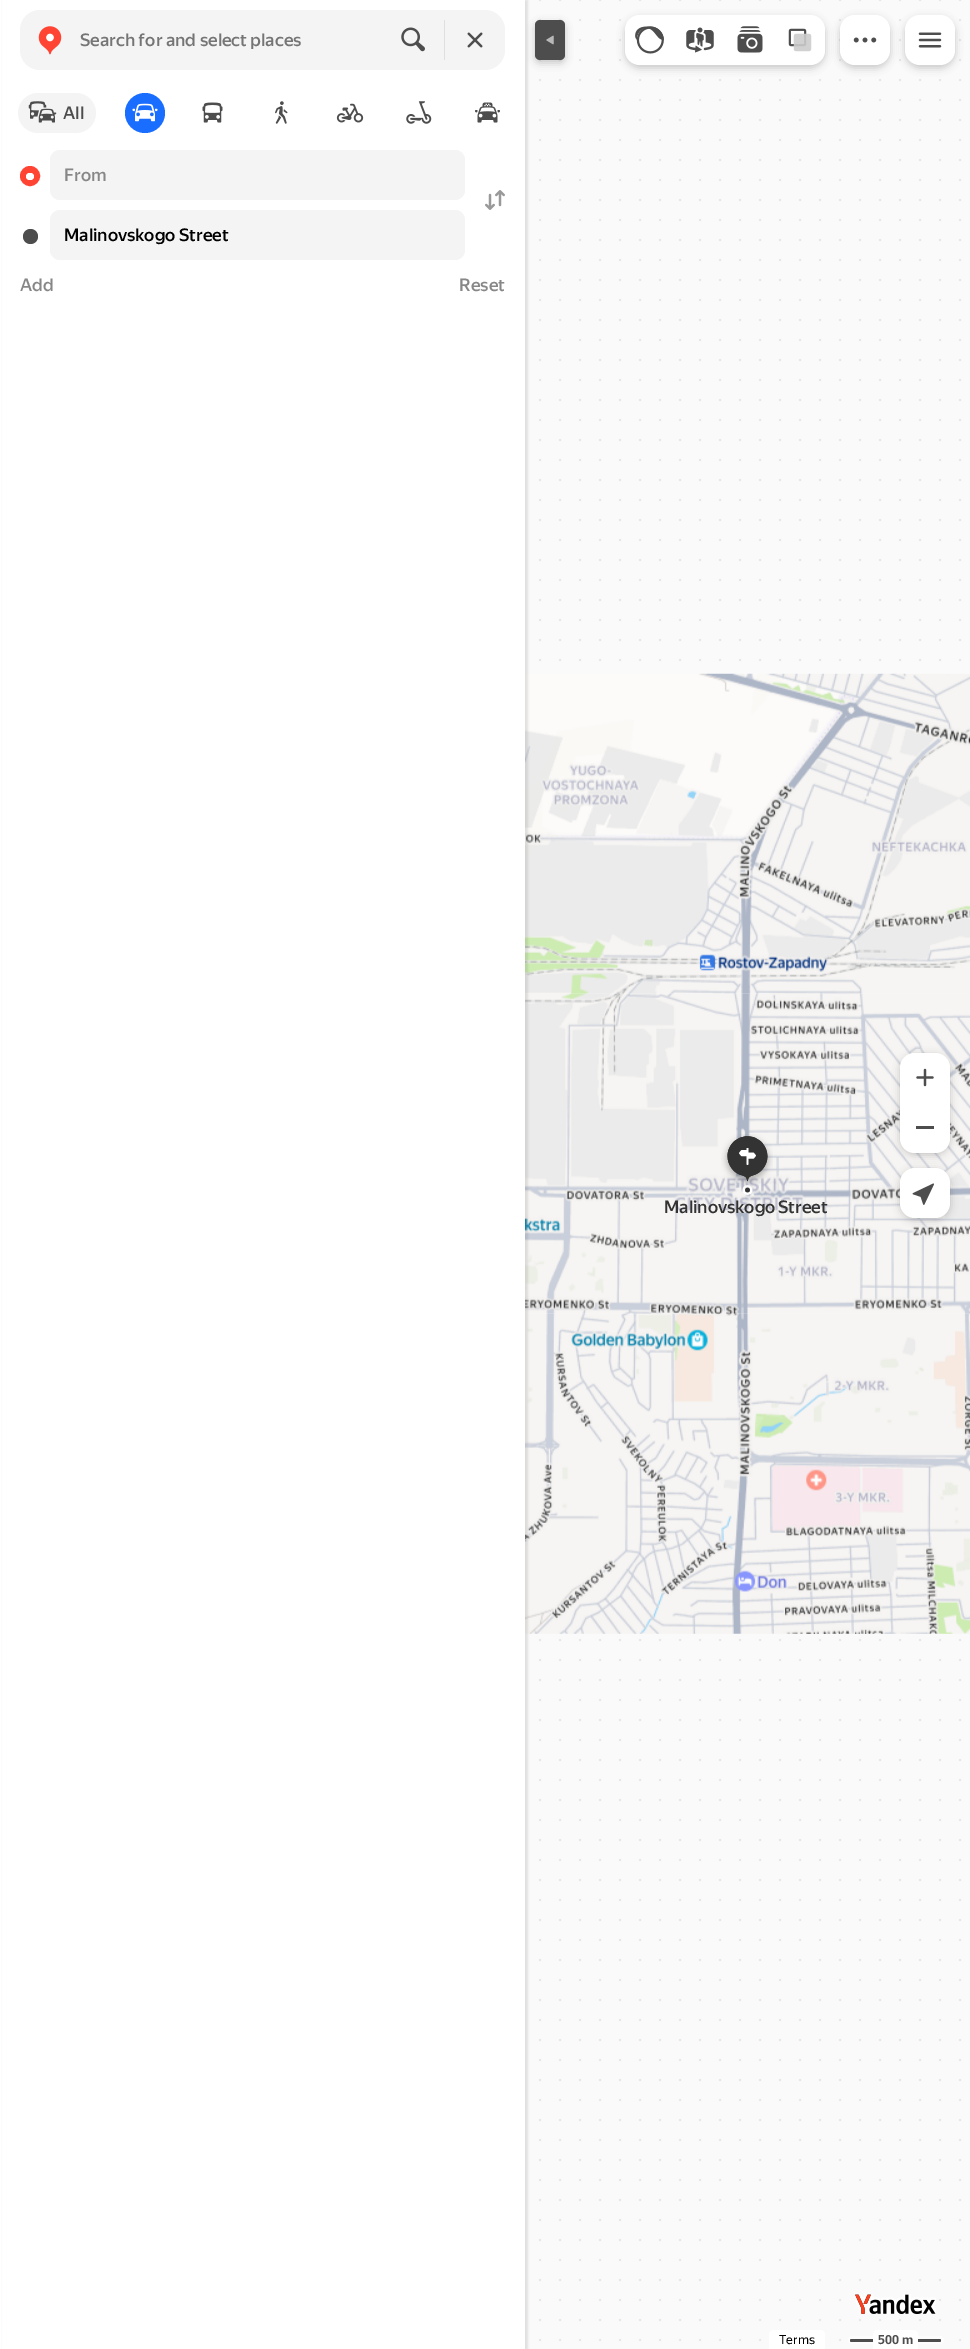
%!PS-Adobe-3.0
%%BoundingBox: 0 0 970 2349
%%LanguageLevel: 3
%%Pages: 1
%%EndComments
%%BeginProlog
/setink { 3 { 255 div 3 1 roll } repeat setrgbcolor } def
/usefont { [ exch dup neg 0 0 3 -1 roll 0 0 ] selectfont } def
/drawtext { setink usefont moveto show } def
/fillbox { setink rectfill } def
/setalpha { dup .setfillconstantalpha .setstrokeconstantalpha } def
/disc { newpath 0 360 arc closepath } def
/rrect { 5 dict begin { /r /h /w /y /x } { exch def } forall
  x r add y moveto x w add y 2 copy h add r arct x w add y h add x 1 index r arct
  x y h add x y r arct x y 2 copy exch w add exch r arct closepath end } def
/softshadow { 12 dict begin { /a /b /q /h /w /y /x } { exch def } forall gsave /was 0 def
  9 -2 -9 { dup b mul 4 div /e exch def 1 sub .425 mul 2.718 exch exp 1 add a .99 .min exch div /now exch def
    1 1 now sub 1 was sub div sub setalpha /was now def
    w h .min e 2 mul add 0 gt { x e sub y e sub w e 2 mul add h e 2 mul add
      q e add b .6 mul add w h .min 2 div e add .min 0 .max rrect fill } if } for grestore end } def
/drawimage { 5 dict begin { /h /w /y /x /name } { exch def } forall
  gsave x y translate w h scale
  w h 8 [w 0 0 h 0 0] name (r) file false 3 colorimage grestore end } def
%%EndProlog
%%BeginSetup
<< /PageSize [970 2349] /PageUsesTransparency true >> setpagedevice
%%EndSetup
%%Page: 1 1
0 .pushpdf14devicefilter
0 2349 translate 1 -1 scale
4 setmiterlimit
0 0 970 2349 255 255 255 fillbox
(assets/img1.rgb) 525 0 445 2349 drawimage
(assets/img23.rgb) 525 673 260 321 drawimage
(assets/img25.rgb) 525 993 260 321 drawimage
(assets/img27.rgb) 525 1313 260 321 drawimage
0 0 0 setink
3 0 525 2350 0 1 0.1 softshadow
535 23 30 40 5 4 0.2 softshadow
2 0 523 2349 255 255 255 fillbox
244 244 244 setink
20 10 485 60 20 rrect fill
(assets/img2.rgb) 38 26 24 29 drawimage
(Search for and select places) 80 46 /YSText-Medium 17.5 117 117 117 drawtext
(assets/img3.rgb) 401 27 24 25 drawimage
444 20 1 40 224 224 224 fillbox
(assets/img4.rgb) 467 32 16 16 drawimage
0 0 0 setink
625 18 200 50 15 4 0.2 softshadow
255 255 255 setink
640 15 moveto 675 15 lineto 675 65 lineto 640 65 lineto 631.5 65 625 58.5 625 50 curveto 625 30 lineto 625 21.5 631.5 15 640 15 curveto closepath fill
(assets/img5.rgb) 635 26 29 28 drawimage
675 15 100 50 255 255 255 fillbox
(assets/img6.rgb) 686 27 28 26 drawimage
775 15 moveto 810 15 lineto 818.5 15 825 21.5 825 30 curveto 825 50 lineto 825 58.5 818.5 65 810 65 curveto 775 65 lineto closepath fill
(assets/img7.rgb) 788 28 24 24 drawimage
(assets/img8.rgb) 737 26 26 27 drawimage
0 0 0 setink
840 18 50 50 15 4 0.2 softshadow
255 255 255 setink
840 15 50 50 15 rrect fill
(assets/img9.rgb) 853 37 24 6 drawimage
0 0 0 setink
905 18 50 50 15 4 0.2 softshadow
255 255 255 setink
905 15 50 50 15 rrect fill
(assets/img10.rgb) 918 32 24 16 drawimage
(assets/img26.rgb) 785 994 185 320 drawimage
0 0 0 setink
900 1055 50 100 15 4 0.2 softshadow
255 255 255 setink
915 1053 moveto 935 1053 lineto 943.5 1053 950 1059.5 950 1068 curveto 950 1103 lineto 900 1103 lineto 900 1068 lineto 900 1059.5 906.5 1053 915 1053 curveto closepath fill
(assets/img11.rgb) 916 1068 18 19 drawimage
900 1103 moveto 950 1103 lineto 950 1138 lineto 950 1146.5 943.5 1153 935 1153 curveto 915 1153 lineto 906.5 1153 900 1146.5 900 1138 curveto closepath fill
916 1126 18 3 77 77 77 fillbox
0 0 0 setink
900 1170 50 50 15 4 0.2 softshadow
255 255 255 setink
900 1168 50 50 15 rrect fill
(assets/img12.rgb) 912 1183 22 22 drawimage
77 77 77 setink
535 20 30 40 5 rrect fill
(assets/img13.rgb) 546 35 8 10 drawimage
244 244 244 setink
18 93 78 40 20 rrect fill
(assets/img14.rgb) 28 101 29 22 drawimage
(All) 63 119 /YSText-Medium 17.5 77 77 77 drawtext
25 109 255 setink
145 113 20 disc fill
(assets/img15.rgb) 132 103 26 19 drawimage
(assets/img16.rgb) 202 102 21 21 drawimage
(assets/img17.rgb) 275 101 13 23 drawimage
(assets/img18.rgb) 336 103 28 20 drawimage
(assets/img19.rgb) 406 101 26 23 drawimage
(assets/img20.rgb) 475 102 25 21 drawimage
255 68 51 setink
30 176 8.5 disc gsave fill grestore
3 setlinewidth
stroke
255 255 255 setink
26 173 8 7 3.5 rrect fill
244 244 244 setink
50 150 415 50 10 rrect fill
(From) 64 181 /YSText-Medium 17.5 135 135 135 drawtext
77 77 77 setink
30.5 236.5 7.5 disc fill
244 244 244 setink
50 210 415 50 10 rrect fill
(Malinovskogo Street) 64 241 /YSText-Medium 17.5 0 0 0 drawtext
(assets/img21.rgb) 485 190 20 20 drawimage
(Add) 20 291 /YSText-Medium 17.5 135 135 135 drawtext
(Reset) 459 291 /YSText-Medium 17.5 135 135 135 drawtext
(assets/img22.rgb) 855 2294 81 20 drawimage
255 255 255 setink
774 2330 moveto 820 2330 lineto 823 2330 825 2332 825 2335 curveto 825 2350 lineto 769 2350 lineto 769 2335 lineto 769 2332 771 2330 774 2330 curveto closepath fill
(Terms) 779 2344 /YSText-Regular 12.5 0 0 0 drawtext
0.6 setalpha
255 255 255 setink
848 2336 96 8 4 rrect fill
1 setalpha
77 77 77 setink
850 2339 91 3 1.5 rrect fill
255 255 255 setink
878 2330 moveto 913 2330 lineto 916 2330 918 2332 918 2335 curveto 918 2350 lineto 873 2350 lineto 873 2335 lineto 873 2332 875 2330 878 2330 curveto closepath fill
(500 m) 878 2344 /YSText-Bold 12.5 77 77 77 drawtext
(assets/img24.rgb) 785 673 185 321 drawimage
(assets/img28.rgb) 785 1313 185 321 drawimage
(assets/img29.rgb) 721 1134 52 61 drawimage
(assets/img30.rgb) 739 1148 17 17 drawimage
(Malinovskogo) 664 1213 /YSText-Medium 17.5 51 51 51 drawtext
(Street) 778 1213 /YSText-Medium 17.5 51 51 51 drawtext
.poppdf14devicefilter showpage
%%EOF
